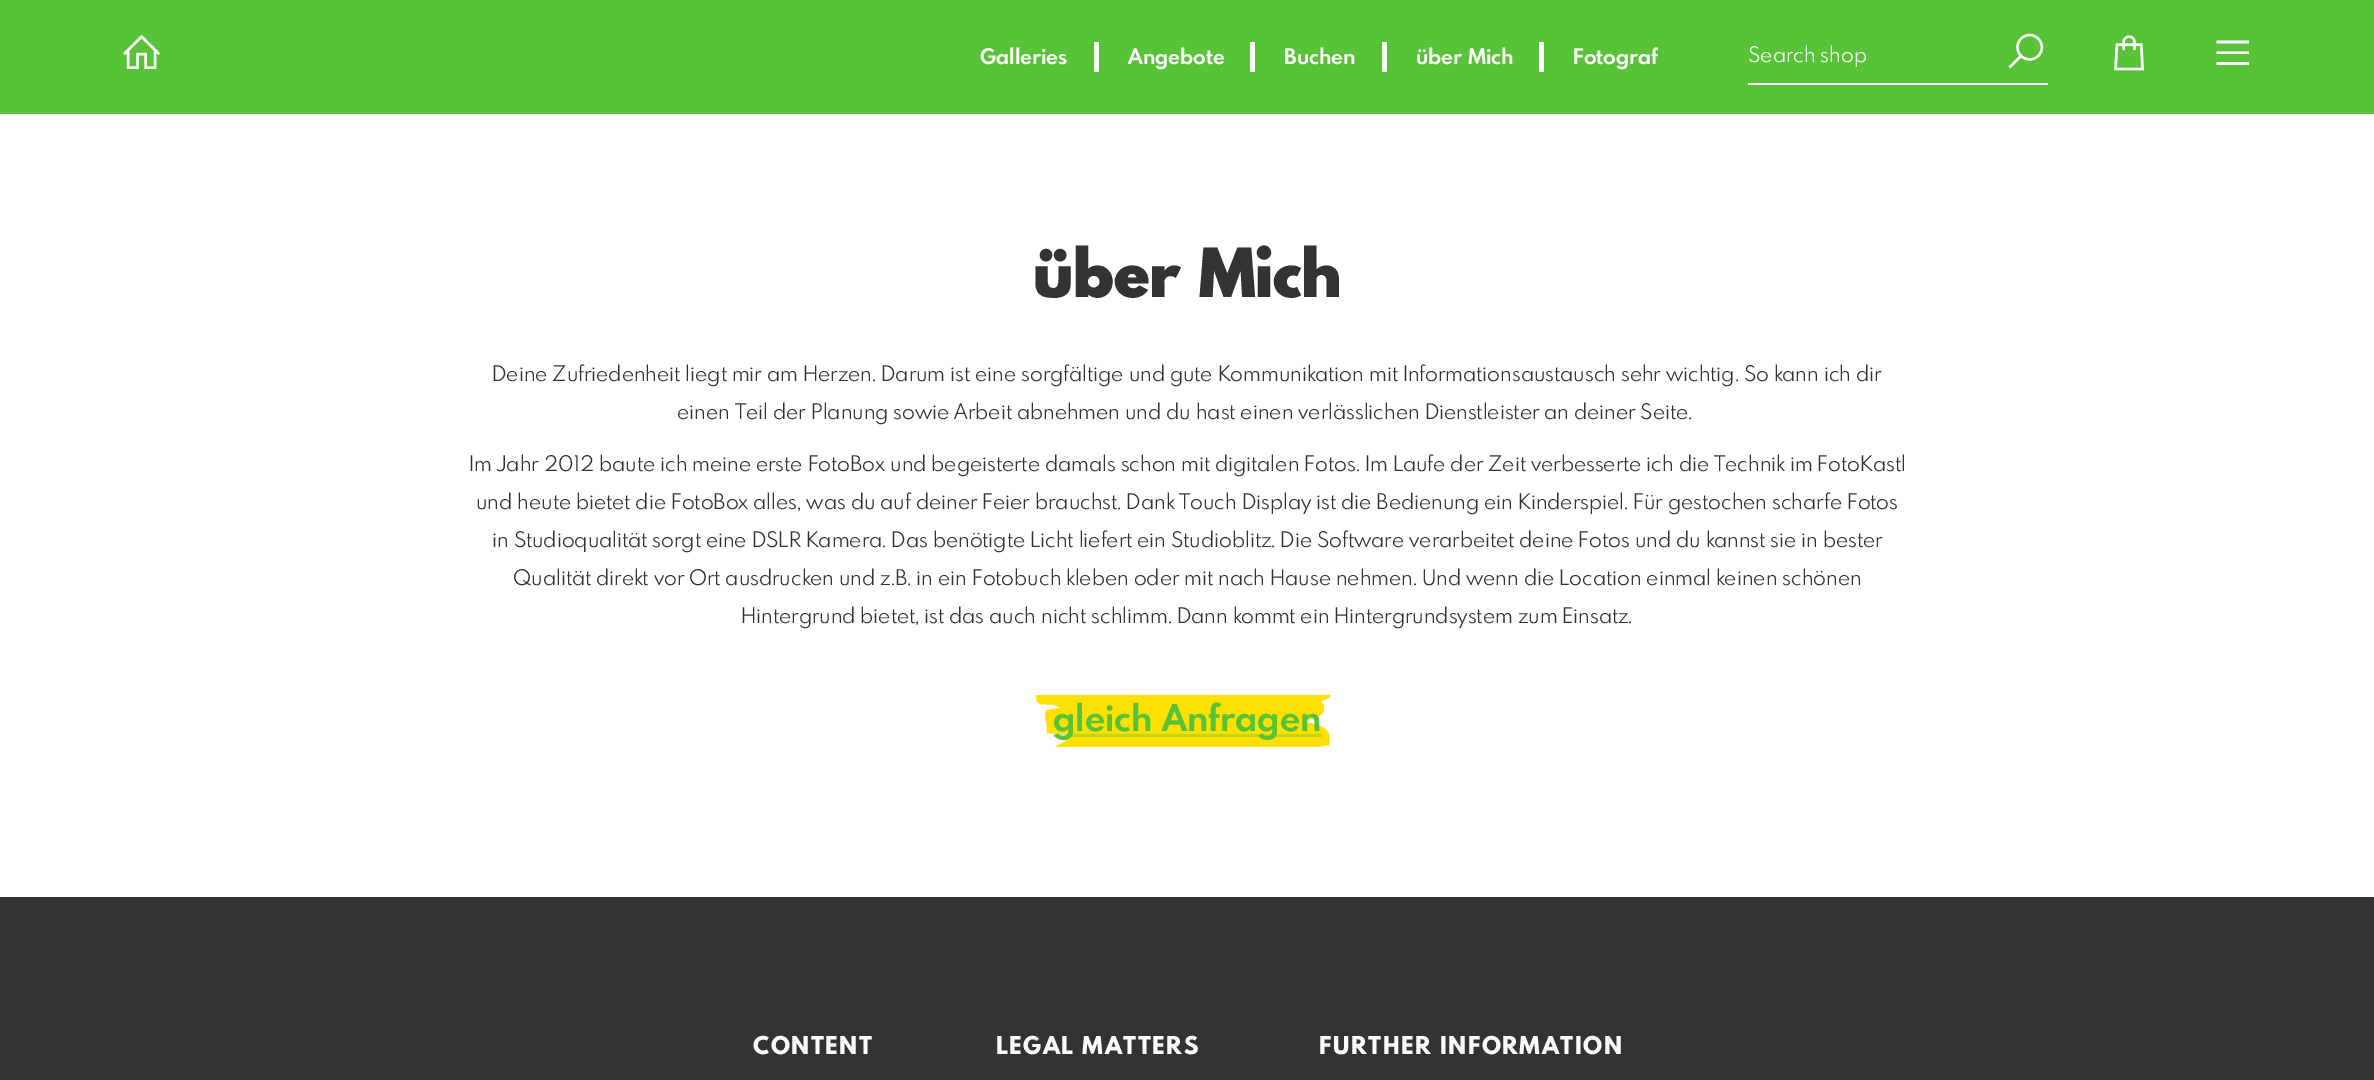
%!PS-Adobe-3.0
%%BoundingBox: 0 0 2374 1080
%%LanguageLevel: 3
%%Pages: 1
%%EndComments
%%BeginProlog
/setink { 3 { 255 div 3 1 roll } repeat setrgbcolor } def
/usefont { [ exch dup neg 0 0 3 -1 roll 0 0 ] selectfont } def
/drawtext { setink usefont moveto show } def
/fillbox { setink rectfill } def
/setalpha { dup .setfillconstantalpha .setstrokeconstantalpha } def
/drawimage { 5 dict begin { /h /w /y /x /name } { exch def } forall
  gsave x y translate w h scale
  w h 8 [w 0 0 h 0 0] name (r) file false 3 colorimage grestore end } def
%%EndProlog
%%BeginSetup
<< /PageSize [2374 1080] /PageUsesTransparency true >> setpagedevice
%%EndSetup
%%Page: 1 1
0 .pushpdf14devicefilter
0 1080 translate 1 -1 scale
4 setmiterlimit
0 0 2374 1080 51 51 51 fillbox
0 0 2374 114 88 194 56 fillbox
(assets/img1.rgb) 123 34 37 35 drawimage
(Galleries) 980 64 /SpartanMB-Bold 21 252 250 250 drawtext
1094 42 5 30 255 255 255 fillbox
(Angebote) 1128 64 /SpartanMB-Bold 21 252 250 250 drawtext
1250 42 5 30 255 255 255 fillbox
(Buchen) 1284 64 /SpartanMB-Bold 21 252 250 250 drawtext
1382 42 5 30 255 255 255 fillbox
(über Mich) 1416 64 /SpartanMB-Bold 21 252 250 250 drawtext
1539 42 5 30 255 255 255 fillbox
gsave
981 42 677 30 rectclip
(Fotograf) 1573 64 /SpartanMB-Bold 21 252 250 250 drawtext
grestore
1748 83 300 2 255 255 255 fillbox
(Search shop) 1748 62 /SpartanMB-Regular 21 252 250 250 drawtext
(assets/img2.rgb) 2008 33 36 36 drawimage
(assets/img3.rgb) 2114 35 30 36 drawimage
255 255 255 setink
2216.5 40.5 moveto 2216.5 43.5 lineto 2249 43.5 lineto 2249 40.5 lineto closepath 2216.5 51.5 moveto 2216.5 54 lineto 2249 54 lineto 2249 51.5 lineto closepath 2216.5 62 moveto 2216.5 65 lineto 2249 65 lineto 2249 62 lineto closepath fill
0 114 2374 783 255 255 255 fillbox
(über Mich) 1033 297 /SpartanMB-Black 66 51 51 51 drawtext
(Deine Zufriedenheit liegt mir am Herzen. Darum ist eine sorgfältige und gute Kommunikation mit Informationsaustausch sehr wichtig. So kann ich dir) 492 381 /SpartanMB-Regular 21 51 51 51 drawtext
(einen Teil der Planung sowie Arbeit abnehmen und du hast einen verlässlichen Dienstleister an deiner Seite.) 677 419 /SpartanMB-Regular 21 51 51 51 drawtext
(Im Jahr 2012 baute ich meine erste FotoBox und begeisterte damals schon mit digitalen Fotos. Im Laufe der Zeit verbesserte ich die Technik im FotoKastl) 469 471 /SpartanMB-Regular 21 51 51 51 drawtext
(und heute bietet die FotoBox alles, was du auf deiner Feier brauchst. Dank Touch Display ist die Bedienung ein Kinderspiel. Für gestochen scharfe Fotos) 476 509 /SpartanMB-Regular 21 51 51 51 drawtext
(in Studioqualität sorgt eine DSLR Kamera. Das benötigte Licht liefert ein Studioblitz. Die Software verarbeitet deine Fotos und du kannst sie in bester) 492 547 /SpartanMB-Regular 21 51 51 51 drawtext
(Qualität direkt vor Ort ausdrucken und z.B. in ein Fotobuch kleben oder mit nach Hause nehmen. Und wenn die Location einmal keinen schönen) 513 585 /SpartanMB-Regular 21 51 51 51 drawtext
(Hintergrund bietet, ist das auch nicht schlimm. Dann kommt ein Hintergrundsystem zum Einsatz.) 741 623 /SpartanMB-Regular 21 51 51 51 drawtext
(assets/img4.rgb) 1036 695 295 52 drawimage
0.35 setalpha
1053 734 269 3 88 194 56 fillbox
1 setalpha
(gleich Anfragen) 1053 731 /SpartanMB-Bold 36 88 194 56 drawtext
/SpartanMB-ExtraBold 24 usefont
252 250 250 setink
753 1054 moveto 1.5 0 (CONTENT) ashow
996 1054 moveto 1.5 0 (LEGAL MATTERS) ashow
1319 1054 moveto 1.5 0 (FURTHER INFORMATION) ashow
.poppdf14devicefilter showpage
%%EOF
